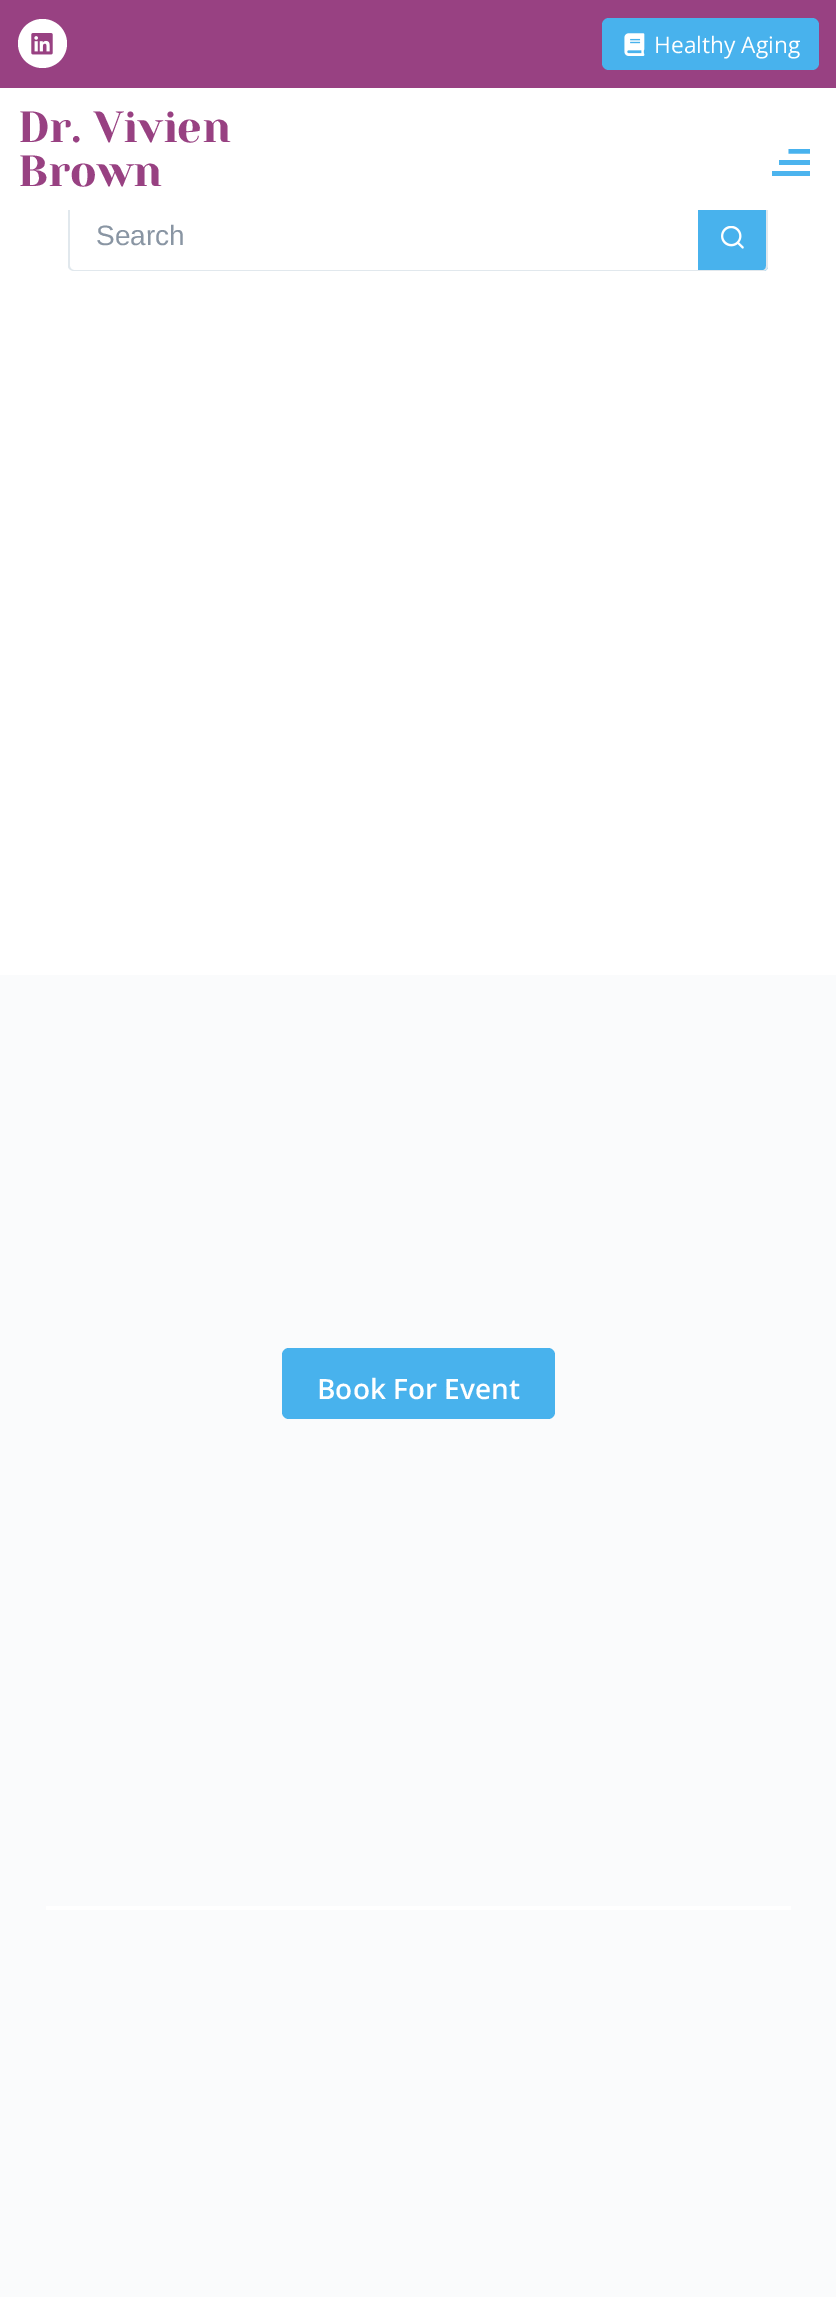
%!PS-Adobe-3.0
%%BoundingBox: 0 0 836 2297
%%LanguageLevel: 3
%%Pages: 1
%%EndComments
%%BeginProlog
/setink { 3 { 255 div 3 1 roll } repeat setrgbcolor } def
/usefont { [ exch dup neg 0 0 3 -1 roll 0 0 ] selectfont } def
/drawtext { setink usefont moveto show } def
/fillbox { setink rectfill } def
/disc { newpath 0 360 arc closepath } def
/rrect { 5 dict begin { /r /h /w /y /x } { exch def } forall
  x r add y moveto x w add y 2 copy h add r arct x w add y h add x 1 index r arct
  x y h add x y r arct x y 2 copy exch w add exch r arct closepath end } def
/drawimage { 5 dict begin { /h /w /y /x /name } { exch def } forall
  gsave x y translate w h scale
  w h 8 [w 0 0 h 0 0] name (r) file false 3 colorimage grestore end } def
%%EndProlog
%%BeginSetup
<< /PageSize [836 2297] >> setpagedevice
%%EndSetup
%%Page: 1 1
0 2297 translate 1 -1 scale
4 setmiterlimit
0 0 836 2297 250 251 252 fillbox
0 0 836 88 152 65 130 fillbox
255 255 255 setink
42.5 43.5 24.5 disc fill
(assets/img1.rgb) 31 33 22 22 drawimage
72 178 237 setink
602 18 217 52 7 rrect fill
(assets/img2.rgb) 624 33 21 23 drawimage
(Healthy Aging) 654 53 /OpenSans-Regular 22.75 255 255 255 drawtext
0 210 836 765 255 255 255 fillbox
225 232 237 setink
74 201 moveto 698 201 lineto 698 271 lineto 74 271 lineto 71 271 68 269 68 266 curveto 68 206 lineto 68 204 71 201 74 201 curveto closepath 74 203 moveto 698 203 lineto 698 270 lineto 74 270 lineto 72 270 70 268 70 266 curveto 70 206 lineto 70 205 72 203 74 203 curveto closepath eofill
72 178 237 setink
698 201 moveto 763 201 lineto 766 201 768 203 768 206 curveto 768 266 lineto 768 269 766 271 763 271 curveto 698 271 lineto closepath fill
225 232 237 setink
698 201 moveto 763 201 lineto 766 201 768 204 768 206 curveto 768 266 lineto 768 269 766 271 763 271 curveto 698 271 lineto closepath 698 203 moveto 763 203 lineto 765 203 766 205 766 206 curveto 766 266 lineto 766 268 765 270 763 270 curveto 698 270 lineto closepath eofill
0 88 836 122 255 255 255 fillbox
(Dr. Vivien) 18 142 /YesevaOne-Regular 43.75 152 65 130 drawtext
(Brown) 18 186 /YesevaOne-Regular 43.75 152 65 130 drawtext
gsave
772 149 38 28 rectclip
72 178 238 setink
4.9 setlinewidth
2 setlinecap
1 setlinejoin
791 151 moveto 808 151 lineto stroke
grestore
779 160 31 5 76 180 238 fillbox
772 171 38 5 76 180 238 fillbox
(Search) 96 245 /LiberationSans-Regular 28 137 149 163 drawtext
(assets/img3.rgb) 721 226 23 23 drawimage
72 178 237 setink
282 1348 273 71 7 rrect fill
(Book For Event) 317 1399 /OpenSans-SemiBold 28 255 255 255 drawtext
46 1906 745 4 255 255 255 fillbox
showpage
%%EOF
